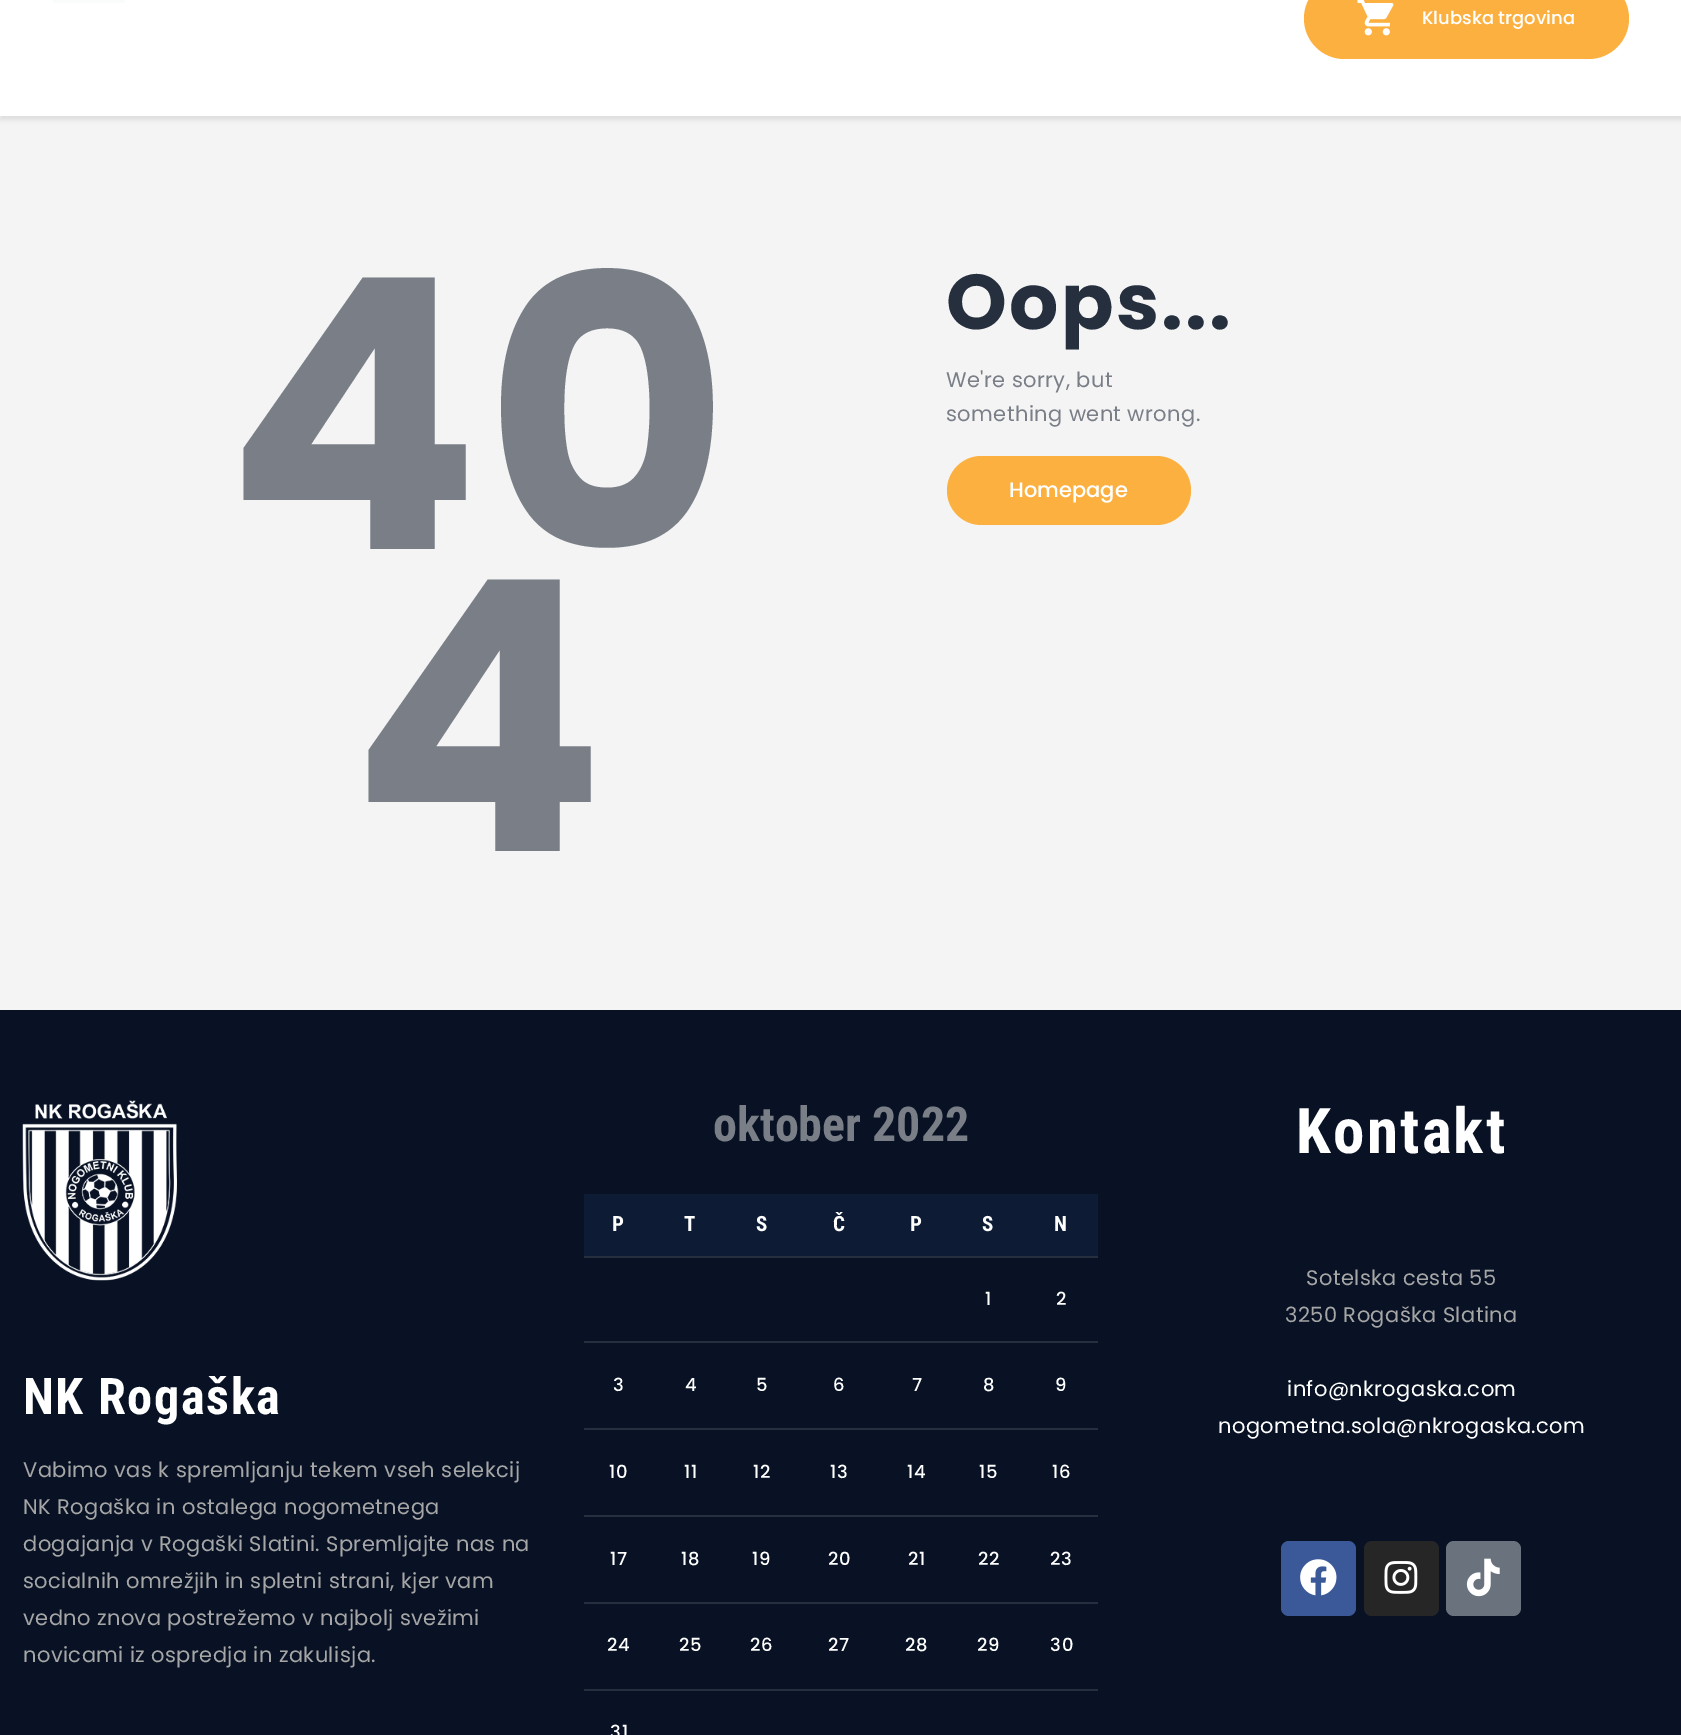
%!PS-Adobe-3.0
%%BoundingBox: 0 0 1681 1735
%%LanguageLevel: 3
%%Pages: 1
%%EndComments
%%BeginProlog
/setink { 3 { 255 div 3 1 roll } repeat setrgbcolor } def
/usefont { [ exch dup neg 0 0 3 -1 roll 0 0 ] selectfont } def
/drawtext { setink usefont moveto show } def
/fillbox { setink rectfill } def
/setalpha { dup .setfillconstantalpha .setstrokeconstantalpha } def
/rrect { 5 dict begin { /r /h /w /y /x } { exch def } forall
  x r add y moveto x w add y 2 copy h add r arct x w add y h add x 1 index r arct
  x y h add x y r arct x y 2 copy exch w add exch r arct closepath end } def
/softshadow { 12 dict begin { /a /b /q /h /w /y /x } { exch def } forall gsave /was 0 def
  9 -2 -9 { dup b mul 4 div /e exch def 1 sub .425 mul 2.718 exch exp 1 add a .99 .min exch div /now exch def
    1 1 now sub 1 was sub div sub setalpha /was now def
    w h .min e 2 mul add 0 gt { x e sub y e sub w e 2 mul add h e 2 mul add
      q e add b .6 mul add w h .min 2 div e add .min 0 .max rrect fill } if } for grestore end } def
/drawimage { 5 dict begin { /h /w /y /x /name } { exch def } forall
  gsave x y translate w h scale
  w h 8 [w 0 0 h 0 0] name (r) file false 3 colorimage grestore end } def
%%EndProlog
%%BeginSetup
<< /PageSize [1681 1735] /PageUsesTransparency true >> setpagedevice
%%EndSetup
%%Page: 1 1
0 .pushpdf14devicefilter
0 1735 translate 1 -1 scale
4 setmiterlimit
0 0 1681 1735 244 244 244 fillbox
0 0 1681 116 255 255 255 fillbox
gsave
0 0 moveto 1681 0 lineto 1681 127 lineto 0 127 lineto closepath 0 -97 moveto 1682 -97 lineto 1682 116 lineto 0 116 lineto closepath eoclip newpath
0 0 0 setink
0 -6 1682 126 0 2 0.08 softshadow
grestore
53 0 72 3 250 251 251 fillbox
251 176 64 setink
1304 -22 325 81 40.5 rrect fill
(assets/img1.rgb) 1357 0 37 36 drawimage
(Klubska trgovina) 1422 24 /Poppins-Medium 18 255 255 255 drawtext
/Poppins-Bold 378 usefont
121 126 135 setink
225 549 moveto 3 0 (40) ashow
350 851 moveto 3 0 (4) ashow
/Poppins-Bold 77.5 usefont
38 47 62 setink
946 329 moveto 2.25 0 (Oops...) ashow
/Poppins-Regular 21 usefont
121 126 135 setink
946 387 moveto 0.4 0 (We're sorry, but) ashow
946 421 moveto 0.4 0 (something went wrong.) ashow
251 176 64 setink
947 456 244 69 34.5 rrect fill
(Homepage) 1009 497 /Poppins-Medium 21 255 255 255 drawtext
0 1010 1681 725 8 18 36 fillbox
(oktober 2022) 713 1141 /RobotoCondensed-Bold 48 121 126 135 drawtext
584 1256 514 2 38 47 62 fillbox
584 1194 514 62 13 27 53 fillbox
/RobotoCondensed-Bold 21 usefont
255 255 255 setink
612 1231 moveto 2 0 (P) ashow
684 1231 moveto 2 0 (T) ashow
756 1231 moveto 2 0 (S) ashow
833 1231 moveto 2 0 (Č) ashow
910 1231 moveto 2 0 (P) ashow
982 1231 moveto 2 0 (S) ashow
1054 1231 moveto 2 0 (N) ashow
/Poppins-Medium 18 usefont
985 1305 moveto 1 0 (1) ashow
1056 1305 moveto 1 0 (2) ashow
584 1341 514 2 38 47 62 fillbox
255 255 255 setink
613 1391 moveto 1 0 (3) ashow
685 1391 moveto 1 0 (4) ashow
756 1391 moveto 1 0 (5) ashow
833 1391 moveto 1 0 (6) ashow
912 1391 moveto 1 0 (7) ashow
983 1391 moveto 1 0 (8) ashow
1055 1391 moveto 1 0 (9) ashow
584 1428 514 2 38 47 62 fillbox
255 255 255 setink
609 1478 moveto 1 0 (10) ashow
684 1478 moveto 1 0 (11) ashow
753 1478 moveto 1 0 (12) ashow
830 1478 moveto 1 0 (13) ashow
907 1478 moveto 1 0 (14) ashow
979 1478 moveto 1 0 (15) ashow
1052 1478 moveto 1 0 (16) ashow
584 1515 514 2 38 47 62 fillbox
255 255 255 setink
610 1565 moveto 1 0 (17) ashow
681 1565 moveto 1 0 (18) ashow
752 1565 moveto 1 0 (19) ashow
828 1565 moveto 1 0 (20) ashow
908 1565 moveto 1 0 (21) ashow
978 1565 moveto 1 0 (22) ashow
1050 1565 moveto 1 0 (23) ashow
584 1602 514 2 38 47 62 fillbox
255 255 255 setink
607 1651 moveto 1 0 (24) ashow
679 1651 moveto 1 0 (25) ashow
750 1651 moveto 1 0 (26) ashow
828 1651 moveto 1 0 (27) ashow
905 1651 moveto 1 0 (28) ashow
977 1651 moveto 1 0 (29) ashow
1050 1651 moveto 1 0 (30) ashow
584 1689 514 2 38 47 62 fillbox
255 255 255 setink
610 1738 moveto 1 0 (31) ashow
/RobotoCondensed-Bold 63 usefont
1296 1153 moveto 2.25 0 (Kontakt) ashow
/Poppins-Regular 21 usefont
166 166 166 setink
1306 1285 moveto 0.4 0 (Sotelska cesta 55) ashow
1285 1322 moveto 0.4 0 (3250 Rogaška Slatina) ashow
255 255 255 setink
1287 1396 moveto 0.4 0 (info@nkrogaska.com) ashow
1218 1433 moveto 0.4 0 (nogometna.sola@nkrogaska.com) ashow
59 89 152 setink
1281 1541 75 75 8 rrect fill
(assets/img2.rgb) 1300 1559 37 37 drawimage
38 38 38 setink
1364 1541 75 75 8 rrect fill
(assets/img3.rgb) 1384 1561 34 33 drawimage
105 114 125 setink
1446 1541 75 75 8 rrect fill
(assets/img4.rgb) 1466 1558 34 39 drawimage
(assets/img5.rgb) 22 1100 155 181 drawimage
/RobotoCondensed-Bold 50.5 usefont
255 255 255 setink
23 1414 moveto 1.5 0 (NK Rogaška) ashow
/Poppins-Regular 21 usefont
166 166 166 setink
23 1477 moveto 0.4 0 (Vabimo vas k spremljanju tekem vseh selekcij) ashow
23 1514 moveto 0.4 0 (NK Rogaška in ostalega nogometnega) ashow
23 1551 moveto 0.4 0 (dogajanja v Rogaški Slatini. Spremljajte nas na) ashow
23 1588 moveto 0.4 0 (socialnih omrežjih in spletni strani, kjer vam) ashow
23 1625 moveto 0.4 0 (vedno znova postrežemo v najbolj svežimi) ashow
23 1662 moveto 0.4 0 (novicami iz ospredja in zakulisja.) ashow
.poppdf14devicefilter showpage
%%EOF
